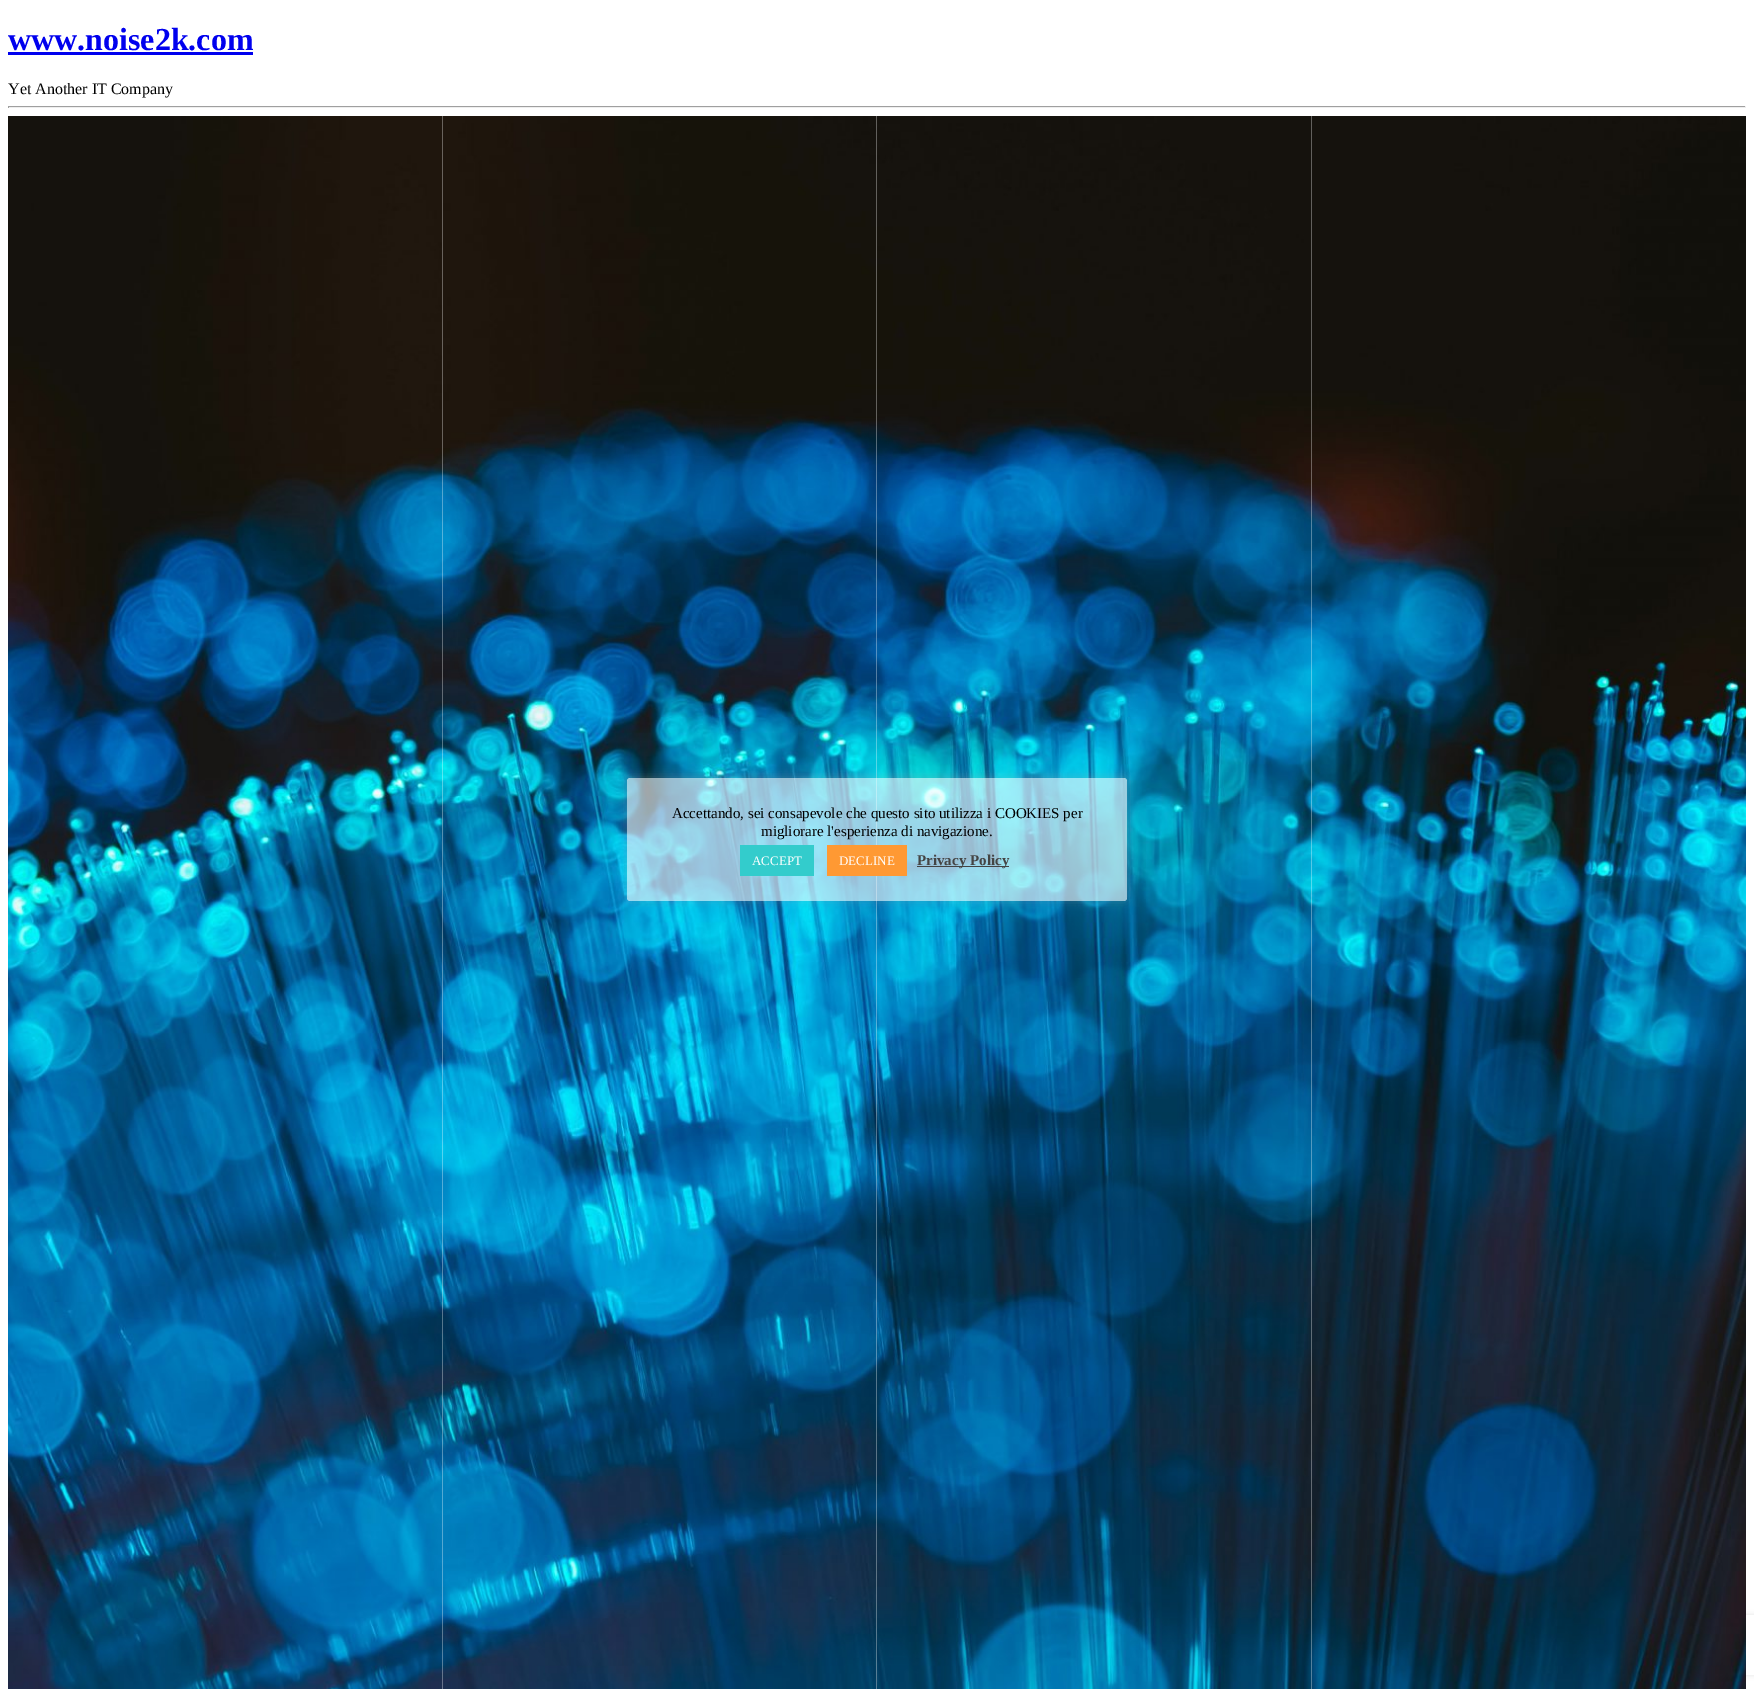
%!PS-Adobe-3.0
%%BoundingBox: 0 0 1754 1689
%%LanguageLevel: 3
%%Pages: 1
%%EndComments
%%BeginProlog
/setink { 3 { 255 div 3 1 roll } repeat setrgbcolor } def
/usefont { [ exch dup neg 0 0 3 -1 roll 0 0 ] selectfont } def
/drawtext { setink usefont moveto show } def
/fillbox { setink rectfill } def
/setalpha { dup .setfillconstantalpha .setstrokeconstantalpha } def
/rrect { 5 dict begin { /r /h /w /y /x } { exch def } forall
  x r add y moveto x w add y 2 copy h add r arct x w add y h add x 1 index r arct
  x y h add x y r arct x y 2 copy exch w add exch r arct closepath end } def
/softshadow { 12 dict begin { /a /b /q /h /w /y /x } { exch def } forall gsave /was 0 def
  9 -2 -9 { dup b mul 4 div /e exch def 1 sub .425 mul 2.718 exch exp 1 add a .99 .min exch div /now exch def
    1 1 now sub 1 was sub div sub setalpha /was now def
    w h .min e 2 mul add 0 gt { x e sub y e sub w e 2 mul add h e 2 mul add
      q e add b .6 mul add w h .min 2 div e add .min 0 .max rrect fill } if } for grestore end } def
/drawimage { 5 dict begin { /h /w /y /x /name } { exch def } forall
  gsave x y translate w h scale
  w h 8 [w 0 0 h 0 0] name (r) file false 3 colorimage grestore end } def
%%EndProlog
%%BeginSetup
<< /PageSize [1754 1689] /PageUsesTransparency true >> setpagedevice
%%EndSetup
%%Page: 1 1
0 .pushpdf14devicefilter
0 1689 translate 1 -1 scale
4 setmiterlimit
0 0 1754 1689 255 255 255 fillbox
(www.noise2k.com) 8 50 /LiberationSerif-Bold 32 0 0 238 drawtext
8 52 245 3 0 0 238 fillbox
(Yet Another IT Company) 8 94 /LiberationSerif-Regular 16 0 0 0 drawtext
8 106 1738 1 159 159 159 fillbox
1745 106 1 2 238 238 238 fillbox
8 107 1738 1 238 238 238 fillbox
8 106 1 2 159 159 159 fillbox
gsave
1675 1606 moveto 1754 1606 lineto 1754 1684 lineto 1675 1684 lineto closepath 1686 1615 moveto 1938 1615 lineto 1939 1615 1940 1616 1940 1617 curveto 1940 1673 lineto 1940 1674 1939 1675 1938 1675 curveto 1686 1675 lineto 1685 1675 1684 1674 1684 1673 curveto 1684 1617 lineto 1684 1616 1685 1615 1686 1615 curveto closepath eoclip newpath
230 230 230 setink
1684 1615 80 60 2 2.5 1 softshadow
grestore
(assets/img1.rgb) 8 116 1738 1573 drawimage
0.33 setalpha
442 116 1 1573 255 255 255 fillbox
876 116 1 1573 255 255 255 fillbox
1311 116 1 1573 255 255 255 fillbox
gsave
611 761 moveto 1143 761 lineto 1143 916 lineto 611 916 lineto closepath 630 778 moveto 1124 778 lineto 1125.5 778 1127 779.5 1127 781 curveto 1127 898 lineto 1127 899.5 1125.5 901 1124 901 curveto 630 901 lineto 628.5 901 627 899.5 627 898 curveto 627 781 lineto 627 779.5 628.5 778 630 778 curveto closepath eoclip newpath
1 setalpha
172 171 171 setink
627 777 500 123 3 5 0.3 softshadow
grestore
0.6 setalpha
627 778 500 123 3 rrect fill
1 setalpha
(Accettando, sei consapevole che questo sito utilizza i COOKIES per) 672 818 /LiberationSerif-Regular 15 0 0 0 drawtext
(migliorare l'esperienza di navigazione.) 761 836 /LiberationSerif-Regular 15 0 0 0 drawtext
740 845 74 31 51 204 204 fillbox
(ACCEPT) 752 865 /LiberationSerif-Regular 13 255 255 255 drawtext
827 845 80 31 255 153 51 fillbox
(DECLINE) 839 865 /LiberationSerif-Regular 13 255 255 255 drawtext
917 866 92 1 68 68 68 fillbox
(Privacy Policy) 917 865 /LiberationSerif-Bold 15 68 68 68 drawtext
.poppdf14devicefilter showpage
%%EOF
